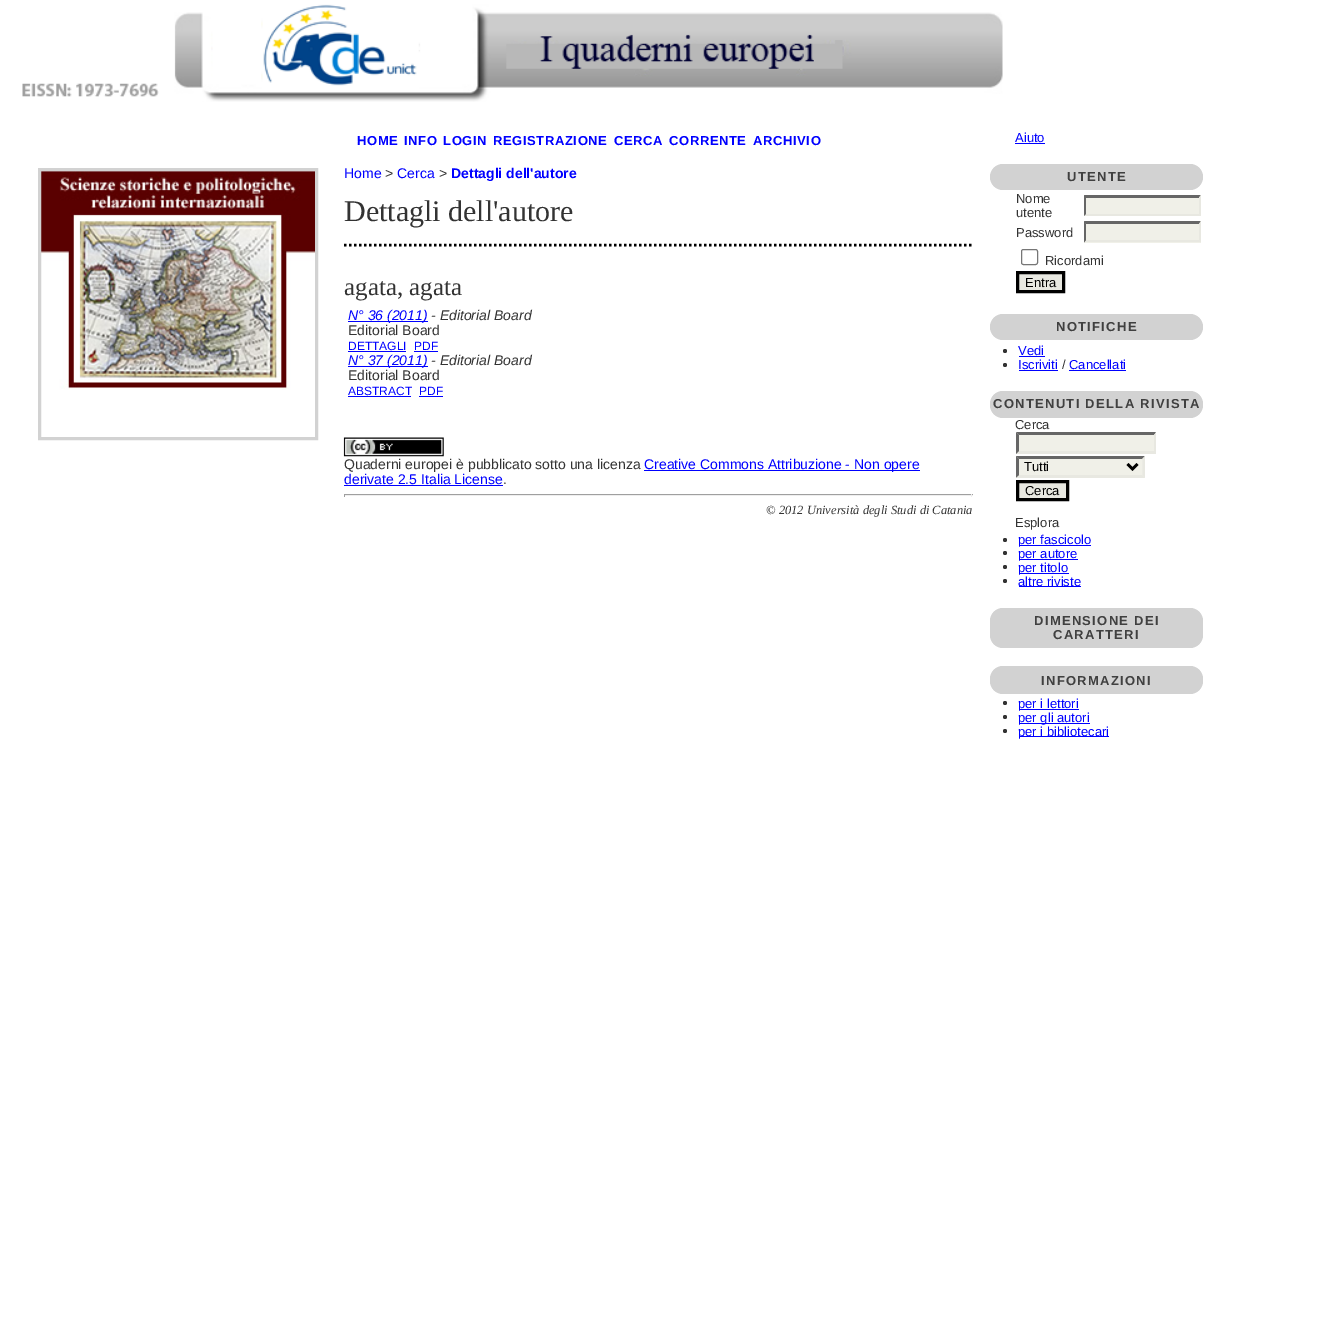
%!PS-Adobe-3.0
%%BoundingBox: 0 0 1336 1325
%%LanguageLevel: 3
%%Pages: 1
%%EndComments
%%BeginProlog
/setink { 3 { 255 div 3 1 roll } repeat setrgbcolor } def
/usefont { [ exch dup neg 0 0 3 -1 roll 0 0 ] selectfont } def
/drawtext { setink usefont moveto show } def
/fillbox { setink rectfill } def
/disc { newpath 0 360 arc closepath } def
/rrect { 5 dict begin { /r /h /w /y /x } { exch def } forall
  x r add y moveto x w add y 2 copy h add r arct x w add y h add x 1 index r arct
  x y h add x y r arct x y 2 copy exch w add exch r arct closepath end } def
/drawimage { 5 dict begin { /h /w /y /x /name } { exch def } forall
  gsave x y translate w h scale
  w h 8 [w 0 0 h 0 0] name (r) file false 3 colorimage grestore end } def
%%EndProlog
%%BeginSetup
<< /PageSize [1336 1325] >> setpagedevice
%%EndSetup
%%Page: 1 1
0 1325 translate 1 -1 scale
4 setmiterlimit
0 0 1336 1325 255 255 255 fillbox
(assets/img1.rgb) 22 4 981 98 drawimage
/LiberationSans-Bold 13 usefont
0 0 255 setink
357 145 moveto 0.6 0 (HOME) ashow
404 145 moveto 0.6 0 (INFO) ashow
443 145 moveto 0.6 0 (LOGIN) ashow
493 145 moveto 0.6 0 (REGISTRAZIONE) ashow
614 145 moveto 0.6 0 (CERCA) ashow
669 145 moveto 0.6 0 (CORRENTE) ashow
753 145 moveto 0.6 0 (ARCHIVIO) ashow
(Home) 344 178 /LiberationSans-Regular 14 0 0 255 drawtext
(>) 385 178 /LiberationSans-Regular 14 51 51 51 drawtext
(Cerca) 397 178 /LiberationSans-Regular 14 0 0 255 drawtext
(>) 439 178 /LiberationSans-Regular 14 51 51 51 drawtext
(Dettagli dell'autore) 451 178 /LiberationSans-Bold 14 0 0 255 drawtext
(Dettagli dell'autore) 344 221 /LiberationSerif-Regular 30 51 51 51 drawtext
0 0 0 setink
2.5 setlinewidth
[2.5 2.5] 0 setdash
344 245 moveto 972.5 245 lineto stroke
(agata, agata) 344 295 /LiberationSerif-Regular 25 51 51 51 drawtext
348 321 80 1 0 0 255 fillbox
(N° 36 \(2011\)) 348 320 /LiberationSans-Italic 14 0 0 255 drawtext
(- Editorial Board) 431 320 /LiberationSans-Italic 14 51 51 51 drawtext
(Editorial Board) 348 335 /LiberationSans-Regular 14 51 51 51 drawtext
(DETTAGLI) 348 350 /LiberationSans-Regular 12 0 0 255 drawtext
348 351 58 1 0 0 255 fillbox
(PDF) 414 350 /LiberationSans-Regular 12 0 0 255 drawtext
414 351 24 1 0 0 255 fillbox
348 366 80 1 0 0 255 fillbox
(N° 37 \(2011\)) 348 365 /LiberationSans-Italic 14 0 0 255 drawtext
(- Editorial Board) 431 365 /LiberationSans-Italic 14 51 51 51 drawtext
(Editorial Board) 348 380 /LiberationSans-Regular 14 51 51 51 drawtext
(ABSTRACT) 348 395 /LiberationSans-Regular 12 0 0 255 drawtext
348 396 63 1 0 0 255 fillbox
(PDF) 419 395 /LiberationSans-Regular 12 0 0 255 drawtext
419 396 24 1 0 0 255 fillbox
(assets/img2.rgb) 343 437 101 20 drawimage
(Quaderni europei è pubblicato sotto una licenza) 344 469 /LiberationSans-Regular 14 51 51 51 drawtext
644 470 276 1 0 0 255 fillbox
(Creative Commons Attribuzione - Non opere) 644 469 /LiberationSans-Regular 14 0 0 255 drawtext
(derivate 2.5 Italia License) 344 484 /LiberationSans-Regular 14 0 0 255 drawtext
(.) 503 484 /LiberationSans-Regular 14 51 51 51 drawtext
344 485 159 1 0 0 255 fillbox
344 494 629 1 159 159 159 fillbox
971 494 1 3 238 238 238 fillbox
344 495 629 1 238 238 238 fillbox
344 494 1 3 159 159 159 fillbox
(© 2012 Università degli Studi di Catania) 766 514 /LiberationSerif-Italic 12.5 51 51 51 drawtext
(assets/img3.rgb) 41 171 274 219 drawimage
210 210 210 setink
3 setlinewidth
[] 0 setdash
39.5 169.5 277 269 rectstroke
(Aiuto) 1015 142 /LiberationSans-Regular 13 0 0 255 drawtext
1015 143 30 1 0 0 255 fillbox
210 210 210 setink
990 164 213 26 13 rrect fill
/LiberationSans-Bold 13 usefont
64 64 64 setink
1067 181 moveto 1.3 0 (UTENTE) ashow
(Nome) 1016 203 /LiberationSans-Regular 13 51 51 51 drawtext
(utente) 1016 217 /LiberationSans-Regular 13 51 51 51 drawtext
1084 195 117 21 240 240 232 fillbox
102 102 102 setink
1084 195 moveto 1201 195 lineto 1199 198 lineto 1086 198 lineto closepath fill
232 232 225 setink
1201 195 moveto 1201 216 lineto 1199 214 lineto 1199 197.5 lineto closepath fill
1201 216 moveto 1084 216 lineto 1086 214 lineto 1199 214 lineto closepath fill
102 102 102 setink
1084 216 moveto 1084 195 lineto 1086 197.5 lineto 1086 214 lineto closepath fill
(Password) 1016 237 /LiberationSans-Regular 13 51 51 51 drawtext
1084 221 117 22 240 240 232 fillbox
102 102 102 setink
1084 221 moveto 1201 221 lineto 1199 224 lineto 1086 224 lineto closepath fill
232 232 225 setink
1201 221 moveto 1201 242.5 lineto 1199 240 lineto 1199 224 lineto closepath fill
1201 242 moveto 1084 242 lineto 1086 240 lineto 1199 240 lineto closepath fill
102 102 102 setink
1084 242.5 moveto 1084 221 lineto 1086 224 lineto 1086 240 lineto closepath fill
118 118 118 setink
1 setlinewidth
1021.5 249.5 16 15 2 rrect stroke
(Ricordami) 1045 265 /LiberationSans-Regular 13 51 51 51 drawtext
232 232 225 setink
1017.5 272.5 moveto 1063.5 272.5 lineto 1063.5 291.5 lineto 1017.5 291.5 lineto closepath gsave fill grestore
0 0 0 setink
3 setlinewidth
stroke
(Entra) 1025 287 /LiberationSans-Regular 13 0 0 0 drawtext
210 210 210 setink
990 314 213 26 13 rrect fill
/LiberationSans-Bold 13 usefont
64 64 64 setink
1056 331 moveto 1.3 0 (NOTIFICHE) ashow
51 51 51 setink
1005 351 2 disc fill
(Vedi) 1018 355 /LiberationSans-Regular 13 0 0 255 drawtext
1019 356 26 1 0 0 255 fillbox
51 51 51 setink
1005 365 2 disc fill
(Iscriviti) 1018 369 /LiberationSans-Regular 13 0 0 255 drawtext
1019 370 39 1 0 0 255 fillbox
(/) 1062 369 /LiberationSans-Regular 13 51 51 51 drawtext
(Cancellati) 1069 369 /LiberationSans-Regular 13 0 0 255 drawtext
1069 370 57 1 0 0 255 fillbox
210 210 210 setink
990 391 213 27 13 rrect fill
/LiberationSans-Bold 13 usefont
64 64 64 setink
993 408 moveto 1.3 0 (CONTENUTI DELLA RIVISTA) ashow
(Cerca) 1015 429 /LiberationSans-Regular 13 51 51 51 drawtext
1016 433 140 21 240 240 232 fillbox
102 102 102 setink
1016 432 moveto 1156 432 lineto 1154 435 lineto 1019 435 lineto closepath fill
232 232 225 setink
1156 432.5 moveto 1156 454 lineto 1154 451 lineto 1154 435 lineto closepath fill
1156 454 moveto 1016 454 lineto 1019 451 lineto 1154 451 lineto closepath fill
102 102 102 setink
1016 454 moveto 1016 432.5 lineto 1019 435 lineto 1019 451 lineto closepath fill
1016 456 129 22 240 240 232 fillbox
102 102 102 setink
1016 456 moveto 1145 456 lineto 1142 459 lineto 1019 459 lineto closepath fill
232 232 225 setink
1145 456 moveto 1145 477.5 lineto 1142.5 475 lineto 1142.5 459 lineto closepath fill
1145 478 moveto 1016 478 lineto 1019 475 lineto 1142 475 lineto closepath fill
102 102 102 setink
1016 477.5 moveto 1016 456 lineto 1019 459 lineto 1019 475 lineto closepath fill
0 0 0 setink
2.5 setlinewidth
1127.5 464 moveto 1132.5 469 lineto 1137.5 464 lineto stroke
(Tutti) 1024 471 /LiberationSans-Regular 13 0 0 0 drawtext
232 232 225 setink
1017.5 481.5 moveto 1067.5 481.5 lineto 1067.5 499.5 lineto 1017.5 499.5 lineto closepath gsave fill grestore
0 0 0 setink
3 setlinewidth
stroke
(Cerca) 1025 495 /LiberationSans-Regular 13 0 0 0 drawtext
(Esplora) 1015 527 /LiberationSans-Regular 13 51 51 51 drawtext
1005 540 2 disc fill
1019 545 72 1 0 0 255 fillbox
(per fascicolo) 1018 544 /LiberationSans-Regular 13 0 0 255 drawtext
51 51 51 setink
1005 553 2 disc fill
1019 559 59 1 0 0 255 fillbox
(per autore) 1018 558 /LiberationSans-Regular 13 0 0 255 drawtext
51 51 51 setink
1005 567 2 disc fill
1019 573 50 1 0 0 255 fillbox
(per titolo) 1018 572 /LiberationSans-Regular 13 0 0 255 drawtext
51 51 51 setink
1005 581 2 disc fill
1019 586 62 1 0 0 255 fillbox
(altre riviste) 1018 586 /LiberationSans-Regular 13 0 0 255 drawtext
210 210 210 setink
990 608 213 40 13 rrect fill
/LiberationSans-Bold 13 usefont
64 64 64 setink
1034 625 moveto 1.3 0 (DIMENSIONE DEI) ashow
1053 639 moveto 1.3 0 (CARATTERI) ashow
210 210 210 setink
990 666 213 28 13 rrect fill
64 64 64 setink
1041 685 moveto 1.3 0 (INFORMAZIONI) ashow
51 51 51 setink
1005 703 2 disc fill
1019 709 60 1 0 0 255 fillbox
(per i lettori) 1018 708 /LiberationSans-Regular 13 0 0 255 drawtext
51 51 51 setink
1005 717 2 disc fill
1019 723 71 1 0 0 255 fillbox
(per gli autori) 1018 722 /LiberationSans-Regular 13 0 0 255 drawtext
51 51 51 setink
1005 731 2 disc fill
1019 736 90 1 0 0 255 fillbox
(per i bibliotecari) 1018 736 /LiberationSans-Regular 13 0 0 255 drawtext
showpage
%%EOF
